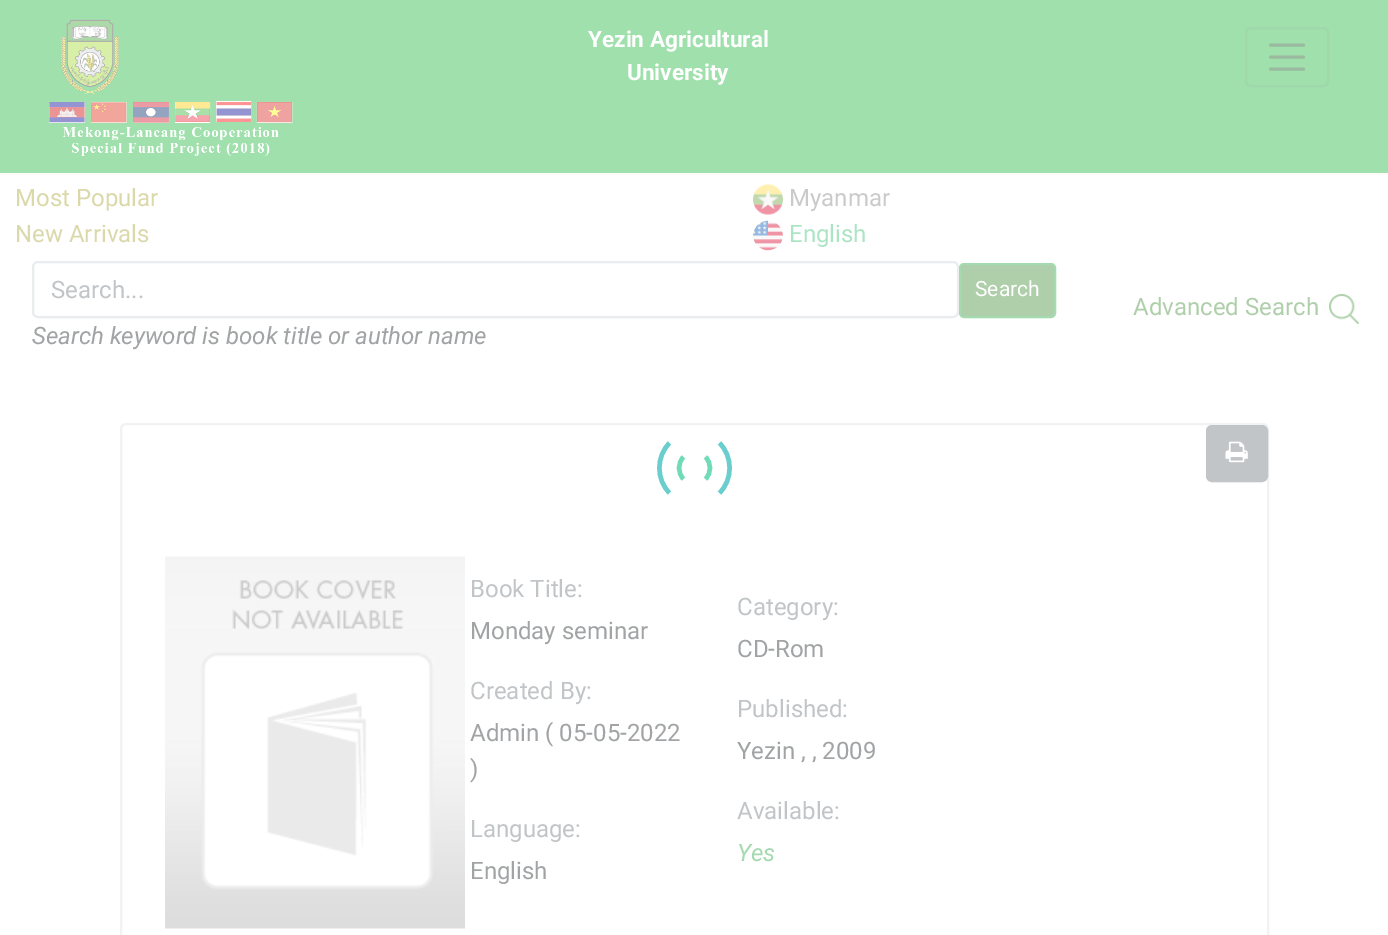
%!PS-Adobe-3.0
%%BoundingBox: 0 0 1388 935
%%LanguageLevel: 3
%%Pages: 1
%%EndComments
%%BeginProlog
/setink { 3 { 255 div 3 1 roll } repeat setrgbcolor } def
/usefont { [ exch dup neg 0 0 3 -1 roll 0 0 ] selectfont } def
/drawtext { setink usefont moveto show } def
/fillbox { setink rectfill } def
/rrect { 5 dict begin { /r /h /w /y /x } { exch def } forall
  x r add y moveto x w add y 2 copy h add r arct x w add y h add x 1 index r arct
  x y h add x y r arct x y 2 copy exch w add exch r arct closepath end } def
/drawimage { 5 dict begin { /h /w /y /x /name } { exch def } forall
  gsave x y translate w h scale
  w h 8 [w 0 0 h 0 0] name (r) file false 3 colorimage grestore end } def
%%EndProlog
%%BeginSetup
<< /PageSize [1388 935] >> setpagedevice
%%EndSetup
%%Page: 1 1
0 935 translate 1 -1 scale
4 setmiterlimit
0 0 1388 935 254 255 254 fillbox
0 0 1388 173 160 224 172 fillbox
0 173 1388 2 252 252 253 fillbox
(assets/img1.rgb) 60 19 59 75 drawimage
(Yezin Agricultural) 588 47 /Roboto-Bold 22.5 255 255 255 drawtext
(University) 627 80 /Roboto-Bold 22.5 255 255 255 drawtext
159 216 170 setink
2 setlinewidth
1246 28 82 58 5 rrect stroke
154 186 160 setink
3 setlinewidth
1 setlinecap
1270.5 45 moveto 1303.5 45 lineto 1270.5 57 moveto 1303.5 57 lineto 1270.5 69 moveto 1303.5 69 lineto stroke
(assets/img2.rgb) 49 101 244 55 drawimage
(Most Popular) 15 206 /Roboto-Regular 24 219 216 170 drawtext
(New Arrivals) 15 242 /Roboto-Regular 24 219 216 170 drawtext
(assets/img3.rgb) 753 184 30 31 drawimage
(Myanmar) 789 206 /Roboto-Regular 24 201 202 201 drawtext
(assets/img4.rgb) 753 220 30 31 drawimage
(English) 789 242 /Roboto-Regular 24 171 229 196 drawtext
234 237 239 setink
2 setlinewidth
0 setlinecap
33 262 925 55 5 rrect stroke
(Search...) 51 298 /Roboto-Regular 24 193 197 200 drawtext
175 207 171 setink
960 264 95 53 4 rrect gsave fill grestore
165 218 177 setink
stroke
(Search) 975 296 /Roboto-Regular 21 255 255 255 drawtext
(Search keyword is book title or author name) 32 344 /Roboto-Italic 24 162 163 165 drawtext
(Advanced Search) 1133 315 /Roboto-Regular 24 175 207 171 drawtext
(assets/img5.rgb) 1329 294 30 30 drawimage
242 242 242 setink
121 424 1147 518 5 rrect stroke
193 197 200 setink
1207 426 60 55 5 rrect gsave fill grestore
stroke
(assets/img6.rgb) 1225 441 23 22 drawimage
(assets/img7.rgb) 165 556 300 373 drawimage
(Book Title:) 470 597 /Roboto-Regular 24 193 197 200 drawtext
(Monday seminar) 470 639 /Roboto-Regular 24 162 163 165 drawtext
(Created By:) 470 699 /Roboto-Regular 24 193 197 200 drawtext
(Admin \( 05-05-2022) 470 741 /Roboto-Regular 24 162 163 165 drawtext
(\)) 470 777 /Roboto-Regular 24 162 163 165 drawtext
(Language:) 470 837 /Roboto-Regular 24 193 197 200 drawtext
(English) 470 879 /Roboto-Regular 24 162 163 165 drawtext
(Category:) 737 615 /Roboto-Regular 24 193 197 200 drawtext
(CD-Rom) 737 657 /Roboto-Regular 24 162 163 165 drawtext
(Published:) 737 717 /Roboto-Regular 24 193 197 200 drawtext
(Yezin , , 2009) 737 759 /Roboto-Regular 24 162 163 165 drawtext
(Available:) 737 819 /Roboto-Regular 24 193 197 200 drawtext
(Yes) 737 861 /Roboto-Italic 24 165 218 177 drawtext
106 205 206 setink
4.5 setlinewidth
719.5 443 moveto 733 456.5 733 479.5 719.5 493 curveto stroke
669.5 493 moveto 656 479.5 656 456.5 669.5 443 curveto stroke
112 219 182 setink
705.5 457 moveto 711.5 463 711.5 473 705.5 479 curveto 683.5 479 moveto 677.5 473 677.5 463 683.5 457 curveto stroke
showpage
%%EOF
